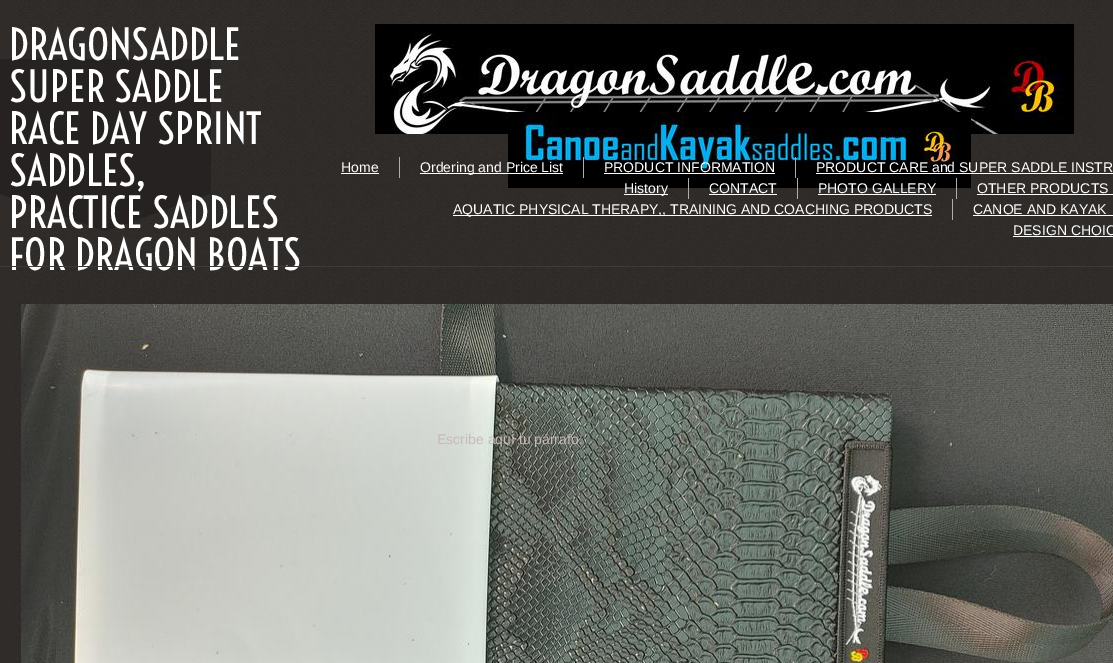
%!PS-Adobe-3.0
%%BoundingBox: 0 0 1113 663
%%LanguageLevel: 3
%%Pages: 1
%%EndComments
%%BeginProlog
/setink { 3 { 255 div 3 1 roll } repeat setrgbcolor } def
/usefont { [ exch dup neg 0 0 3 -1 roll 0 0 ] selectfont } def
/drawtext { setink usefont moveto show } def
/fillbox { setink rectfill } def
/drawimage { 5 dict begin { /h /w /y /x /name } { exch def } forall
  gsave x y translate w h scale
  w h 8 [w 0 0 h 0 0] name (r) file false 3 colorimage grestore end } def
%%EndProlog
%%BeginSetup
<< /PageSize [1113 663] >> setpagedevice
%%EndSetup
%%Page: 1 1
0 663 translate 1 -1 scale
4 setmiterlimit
0 0 1113 663 48 44 42 fillbox
(assets/img1.rgb) 14 0 1088 661 drawimage
(assets/img3.rgb) 0 59 211 172 drawimage
(DRAGONSADDLE) 9 60 /Voltaire-Regular 42 255 255 255 drawtext
(SUPER SADDLE) 9 102 /Voltaire-Regular 42 255 255 255 drawtext
(RACE DAY SPRINT) 9 144 /Voltaire-Regular 42 255 255 255 drawtext
(SADDLES,) 9 186 /Voltaire-Regular 42 255 255 255 drawtext
(PRACTICE SADDLES) 9 228 /Voltaire-Regular 42 255 255 255 drawtext
(FOR DRAGON BOATS) 9 270 /Voltaire-Regular 42 255 255 255 drawtext
(assets/img2.rgb) 375 24 699 110 drawimage
(assets/img4.rgb) 508 112 463 76 drawimage
399 157 1 21 174 174 174 fillbox
(Home) 341 172 /LiberationSans-Regular 14 255 255 255 drawtext
341 173 38 1 255 255 255 fillbox
583 157 1 21 174 174 174 fillbox
420 173 143 1 255 255 255 fillbox
(Ordering and Price List) 420 172 /LiberationSans-Regular 14 255 255 255 drawtext
795 157 1 21 174 174 174 fillbox
(PRODUCT INFORMATION) 604 172 /LiberationSans-Regular 14 255 255 255 drawtext
604 173 171 1 255 255 255 fillbox
(PRODUCT CARE and SUPER SADDLE INSTR) 816 172 /LiberationSans-Regular 14 255 255 255 drawtext
816 173 297 1 255 255 255 fillbox
688 178 1 21 174 174 174 fillbox
624 194 44 1 255 255 255 fillbox
(History) 624 193 /LiberationSans-Regular 14 255 255 255 drawtext
797 178 1 21 174 174 174 fillbox
(CONTACT) 709 193 /LiberationSans-Regular 14 255 255 255 drawtext
709 194 68 1 255 255 255 fillbox
956 178 1 21 174 174 174 fillbox
(PHOTO GALLERY) 818 193 /LiberationSans-Regular 14 255 255 255 drawtext
818 194 118 1 255 255 255 fillbox
(OTHER PRODUCTS) 977 193 /LiberationSans-Regular 14 255 255 255 drawtext
977 194 136 1 255 255 255 fillbox
952 199 1 21 174 174 174 fillbox
453 215 479 1 255 255 255 fillbox
(AQUATIC PHYSICAL THERAPY,, TRAINING AND COACHING PRODUCTS) 453 214 /LiberationSans-Regular 14 255 255 255 drawtext
(CANOE AND KAYAK) 973 214 /LiberationSans-Regular 14 255 255 255 drawtext
973 215 140 1 255 255 255 fillbox
(DESIGN CHOIC) 1013 235 /LiberationSans-Regular 14 255 255 255 drawtext
1013 236 100 1 255 255 255 fillbox
0 266 1113 1 61 58 56 fillbox
(assets/img5.rgb) 21 304 1092 359 drawimage
(Escribe aquí tu párrafo.) 437 444 /LiberationSans-Regular 14 200 187 183 drawtext
showpage
%%EOF
